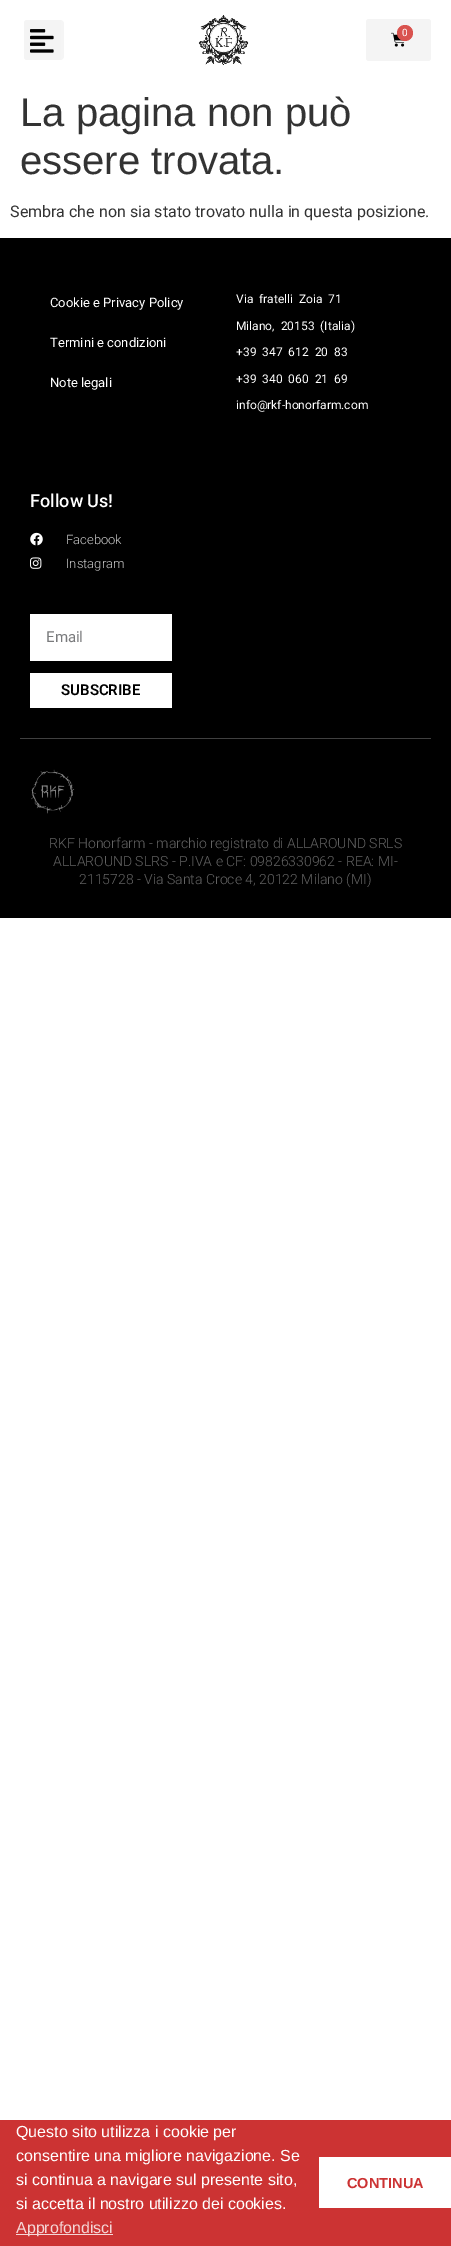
%!PS-Adobe-3.0
%%BoundingBox: 0 0 451 2246
%%LanguageLevel: 3
%%Pages: 1
%%EndComments
%%BeginProlog
/setink { 3 { 255 div 3 1 roll } repeat setrgbcolor } def
/usefont { [ exch dup neg 0 0 3 -1 roll 0 0 ] selectfont } def
/drawtext { setink usefont moveto show } def
/fillbox { setink rectfill } def
/disc { newpath 0 360 arc closepath } def
/rrect { 5 dict begin { /r /h /w /y /x } { exch def } forall
  x r add y moveto x w add y 2 copy h add r arct x w add y h add x 1 index r arct
  x y h add x y r arct x y 2 copy exch w add exch r arct closepath end } def
/drawimage { 5 dict begin { /h /w /y /x /name } { exch def } forall
  gsave x y translate w h scale
  w h 8 [w 0 0 h 0 0] name (r) file false 3 colorimage grestore end } def
%%EndProlog
%%BeginSetup
<< /PageSize [451 2246] >> setpagedevice
%%EndSetup
%%Page: 1 1
0 2246 translate 1 -1 scale
4 setmiterlimit
0 0 451 2246 255 255 255 fillbox
245 245 245 setink
24 20 40 40 4 rrect fill
244 244 244 setink
24 20 37 40 3 rrect fill
(assets/img1.rgb) 30 29 24 24 drawimage
(assets/img2.rgb) 198 15 51 50 drawimage
366 19 65 42 3 rrect fill
(assets/img3.rgb) 391 32 14 15 drawimage
217 83 79 setink
405 33 8 disc fill
(0) 402 36 /Roboto-Regular 10 255 255 255 drawtext
(La pagina non può) 20 126 /LiberationSans-Regular 40 51 51 51 drawtext
(essere trovata.) 20 174 /LiberationSans-Regular 40 51 51 51 drawtext
(Sembra che non sia stato trovato nulla in questa posizione.) 10 217 /Roboto-Regular 16 51 51 51 drawtext
0 238 451 680 0 0 0 fillbox
(Cookie e Privacy Policy) 50 307 /Roboto-Regular 13 255 255 255 drawtext
(Termini e condizioni) 50 347 /Roboto-Regular 13 255 255 255 drawtext
(Note legali) 50 387 /Roboto-Regular 13 255 255 255 drawtext
/Roboto-Regular 12 usefont
236 303 moveto 3 0 32 (Via fratelli Zoia 71) widthshow
236 330 moveto 3 0 32 (Milano, 20153 \(Italia\)) widthshow
236 356 moveto 3 0 32 (+39 347 612 20 83) widthshow
236 383 moveto 3 0 32 (+39 340 060 21 69) widthshow
(info@rkf-honorfarm.com) 236 409 /Roboto-Regular 12 255 255 255 drawtext
(Follow Us!) 30 507 /Roboto-Medium 18 255 255 255 drawtext
(assets/img4.rgb) 30 532 13 14 drawimage
(Facebook) 66 544 /Roboto-Light 13 201 201 201 drawtext
(assets/img5.rgb) 30 557 12 12 drawimage
(Instagram) 66 568 /Roboto-Light 13 201 201 201 drawtext
30 614 142 47 255 255 255 fillbox
(Email) 46 642 /Roboto-Regular 15 121 122 124 drawtext
30 673 142 35 255 255 255 fillbox
(SUBSCRIBE) 61 695 /Roboto-SemiBold 15 0 0 0 drawtext
20 738 411 1 64 64 64 fillbox
(assets/img6.rgb) 31 769 44 45 drawimage
(RKF Honorfarm - marchio registrato di ALLAROUND SRLS) 49 848 /Roboto-Light 14 99 99 99 drawtext
(ALLAROUND SLRS - P.IVA e CF: 09826330962 - REA: MI-) 53 866 /Roboto-Light 14 99 99 99 drawtext
(2115728 - Via Santa Croce 4, 20122 Milano \(MI\)) 79 884 /Roboto-Light 14 99 99 99 drawtext
0 2120 451 126 204 51 51 fillbox
(Questo sito utilizza i cookie per) 16 2137 /LiberationSans-Regular 16 255 255 255 drawtext
(consentire una migliore navigazione. Se) 16 2161 /LiberationSans-Regular 16 255 255 255 drawtext
(si continua a navigare sul presente sito,) 16 2185 /LiberationSans-Regular 16 255 255 255 drawtext
(si accetta il nostro utilizzo dei cookies.) 16 2209 /LiberationSans-Regular 16 255 255 255 drawtext
16 2234 97 1 245 214 214 fillbox
(Approfondisci) 16 2233 /LiberationSans-Regular 16 245 214 214 drawtext
319 2157 132 51 255 255 255 fillbox
(CONTINUA) 347 2188 /LiberationSans-Bold 14.5 204 51 51 drawtext
showpage
%%EOF
